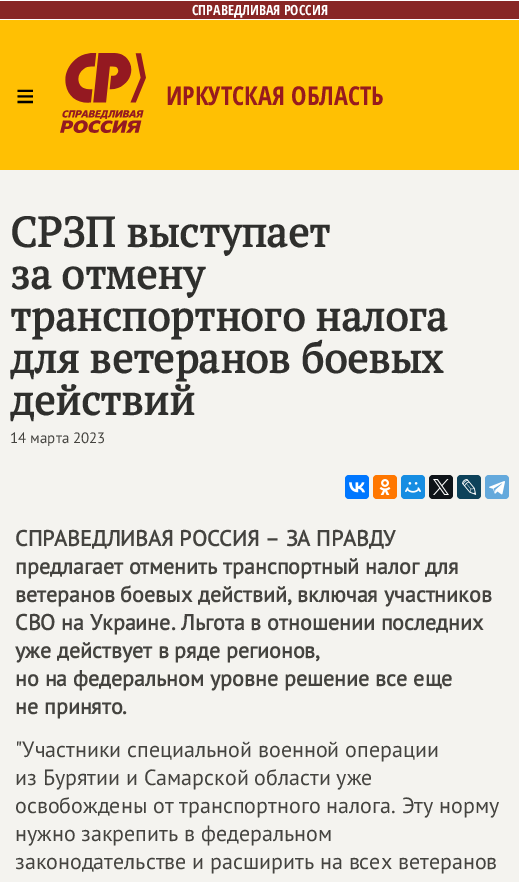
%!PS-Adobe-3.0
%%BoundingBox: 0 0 519 882
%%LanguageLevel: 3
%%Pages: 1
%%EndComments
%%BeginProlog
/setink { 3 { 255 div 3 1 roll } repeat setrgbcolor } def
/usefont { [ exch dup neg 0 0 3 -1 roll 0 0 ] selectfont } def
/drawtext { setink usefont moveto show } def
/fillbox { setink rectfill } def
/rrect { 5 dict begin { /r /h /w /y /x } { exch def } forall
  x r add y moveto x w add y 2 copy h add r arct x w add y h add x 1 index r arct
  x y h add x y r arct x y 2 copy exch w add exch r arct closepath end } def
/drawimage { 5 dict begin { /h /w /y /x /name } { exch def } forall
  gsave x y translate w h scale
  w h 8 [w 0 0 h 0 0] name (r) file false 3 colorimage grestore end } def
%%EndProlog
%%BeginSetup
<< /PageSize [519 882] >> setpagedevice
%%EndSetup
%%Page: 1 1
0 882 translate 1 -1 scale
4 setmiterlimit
0 0 519 882 244 243 239 fillbox
0 20 519 150 255 192 3 fillbox
0 1 519 18 136 38 37 fillbox
0 0 519 1 255 255 255 fillbox
0 19 519 1 255 255 255 fillbox
(СПРАВЕДЛИВАЯ РОССИЯ) 192 15 /OpenSansCondensed-Bold 14 255 255 255 drawtext
(≡) 16 107 /LiberationSans-Regular 32 0 0 0 drawtext
(assets/img1.rgb) 60 53 86 80 drawimage
(ИРКУТСКАЯ ОБЛАСТЬ) 166 105 /OpenSansCondensed-Bold 26 151 27 30 drawtext
(СРЗП выступает) 10 247 /PTSerif-Bold 42 47 47 45 drawtext
(за отмену) 10 289 /PTSerif-Bold 42 47 47 45 drawtext
(транспортного налога) 10 331 /PTSerif-Bold 42 47 47 45 drawtext
(для ветеранов боевых) 10 373 /PTSerif-Bold 42 47 47 45 drawtext
(действий) 10 415 /PTSerif-Bold 42 47 47 45 drawtext
(14 марта 2023) 10 443 /PTSans-Regular 15 68 67 63 drawtext
0 119 255 setink
345 475 24 24 4 rrect fill
(assets/img2.rgb) 349 482 16 11 drawimage
255 119 0 setink
373 475 24 24 4 rrect fill
(assets/img3.rgb) 379 479 12 16 drawimage
22 141 226 setink
401 475 24 24 4 rrect fill
(assets/img4.rgb) 405 482 16 11 drawimage
15 20 25 setink
429 475 24 24 4 rrect fill
(assets/img5.rgb) 433 479 16 16 drawimage
13 66 90 setink
457 475 24 24 4 rrect fill
(assets/img6.rgb) 462 479 15 16 drawimage
100 169 220 setink
485 475 24 24 4 rrect fill
(assets/img7.rgb) 489 481 16 14 drawimage
(СПРАВЕДЛИВАЯ РОССИЯ – ЗА ПРАВДУ) 15 546 /PTSans-Bold 22 68 67 63 drawtext
(предлагает отменить транспортный налог для) 15 574 /PTSans-Bold 22 68 67 63 drawtext
(ветеранов боевых действий, включая участников) 15 602 /PTSans-Bold 22 68 67 63 drawtext
(СВО на Украине. Льгота в отношении последних) 15 630 /PTSans-Bold 22 68 67 63 drawtext
(уже действует в ряде регионов,) 15 658 /PTSans-Bold 22 68 67 63 drawtext
(но на федеральном уровне решение все еще) 15 686 /PTSans-Bold 22 68 67 63 drawtext
(не принято.) 15 714 /PTSans-Bold 22 68 67 63 drawtext
("Участники специальной военной операции) 15 757 /PTSans-Regular 22 68 67 63 drawtext
(из Бурятии и Самарской области уже) 15 785 /PTSans-Regular 22 68 67 63 drawtext
(освобождены от транспортного налога. Эту норму) 15 813 /PTSans-Regular 22 68 67 63 drawtext
(нужно закрепить в федеральном) 15 841 /PTSans-Regular 22 68 67 63 drawtext
(законодательстве и расширить на всех ветеранов) 15 869 /PTSans-Regular 22 68 67 63 drawtext
showpage
%%EOF
